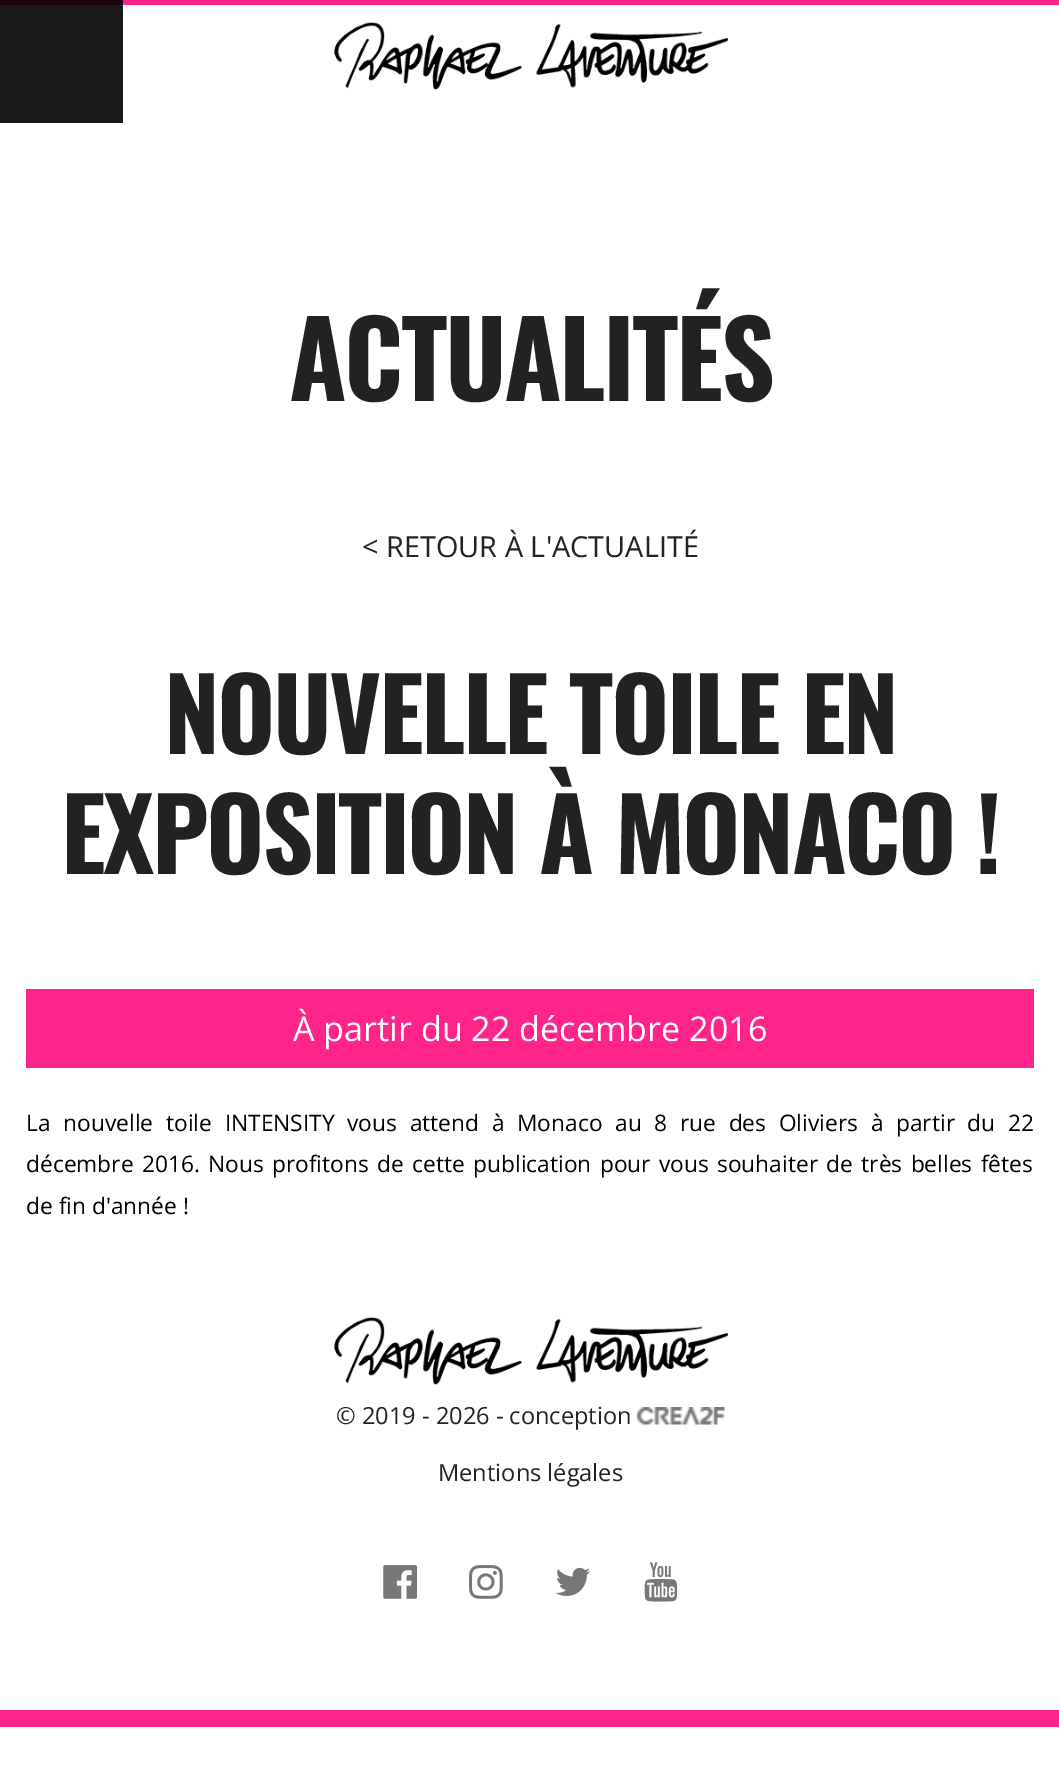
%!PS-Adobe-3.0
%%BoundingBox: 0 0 1059 1766
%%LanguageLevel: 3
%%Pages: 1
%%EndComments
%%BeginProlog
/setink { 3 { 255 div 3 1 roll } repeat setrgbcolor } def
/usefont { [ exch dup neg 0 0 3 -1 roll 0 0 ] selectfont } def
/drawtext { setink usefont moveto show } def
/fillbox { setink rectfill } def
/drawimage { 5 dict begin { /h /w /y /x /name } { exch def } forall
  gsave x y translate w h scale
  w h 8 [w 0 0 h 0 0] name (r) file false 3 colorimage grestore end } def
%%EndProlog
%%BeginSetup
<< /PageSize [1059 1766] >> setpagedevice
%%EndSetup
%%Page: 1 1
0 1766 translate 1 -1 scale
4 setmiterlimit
0 0 1059 1766 255 255 255 fillbox
0 5 123 118 25 25 25 fillbox
123 0 936 5 254 36 138 fillbox
0 0 123 5 25 4 14 fillbox
(assets/img1.rgb) 334 22 394 68 drawimage
/Oswald-Bold 105 usefont
34 34 34 setink
289 401 moveto -2.6 0 (ACTUALITÉS) ashow
(< RETOUR À L'ACTUALITÉ) 362 557 /OpenSans-Regular 28.9 34 34 34 drawtext
/Oswald-Bold 99.75 usefont
164 754 moveto -2.6 0 (NOUVELLE TOILE EN) ashow
61 874 moveto -2.6 0 (EXPOSITION À MONACO !) ashow
26 989 1008 79 254 36 138 fillbox
(À partir du 22 décembre 2016) 293 1041 /OpenSans-Regular 34.1 255 255 255 drawtext
/OpenSans-Regular 22.75 usefont
0 0 0 setink
26 1131 moveto 6.75 0 32 (La nouvelle toile INTENSITY vous attend à Monaco au 8 rue des Oliviers à partir du 22) widthshow
26 1172 moveto 2.4 0 32 (décembre 2016. Nous profitons de cette publication pour vous souhaiter de très belles fêtes) widthshow
(de fin d'année !) 26 1214 /OpenSans-Regular 22.75 0 0 0 drawtext
0 1710 1059 17 254 36 138 fillbox
(assets/img1.rgb) 334 1317 394 68 drawimage
(© 2019 - 2026 - conception) 336 1424 /OpenSans-Regular 23.6 34 34 34 drawtext
(assets/img2.rgb) 637 1407 88 18 drawimage
(Mentions légales) 438 1481 /OpenSans-Regular 23.6 34 34 34 drawtext
(assets/img3.rgb) 383 1565 34 34 drawimage
(assets/img4.rgb) 469 1565 34 34 drawimage
(assets/img5.rgb) 556 1567 35 29 drawimage
(assets/img6.rgb) 644 1562 34 40 drawimage
showpage
%%EOF
